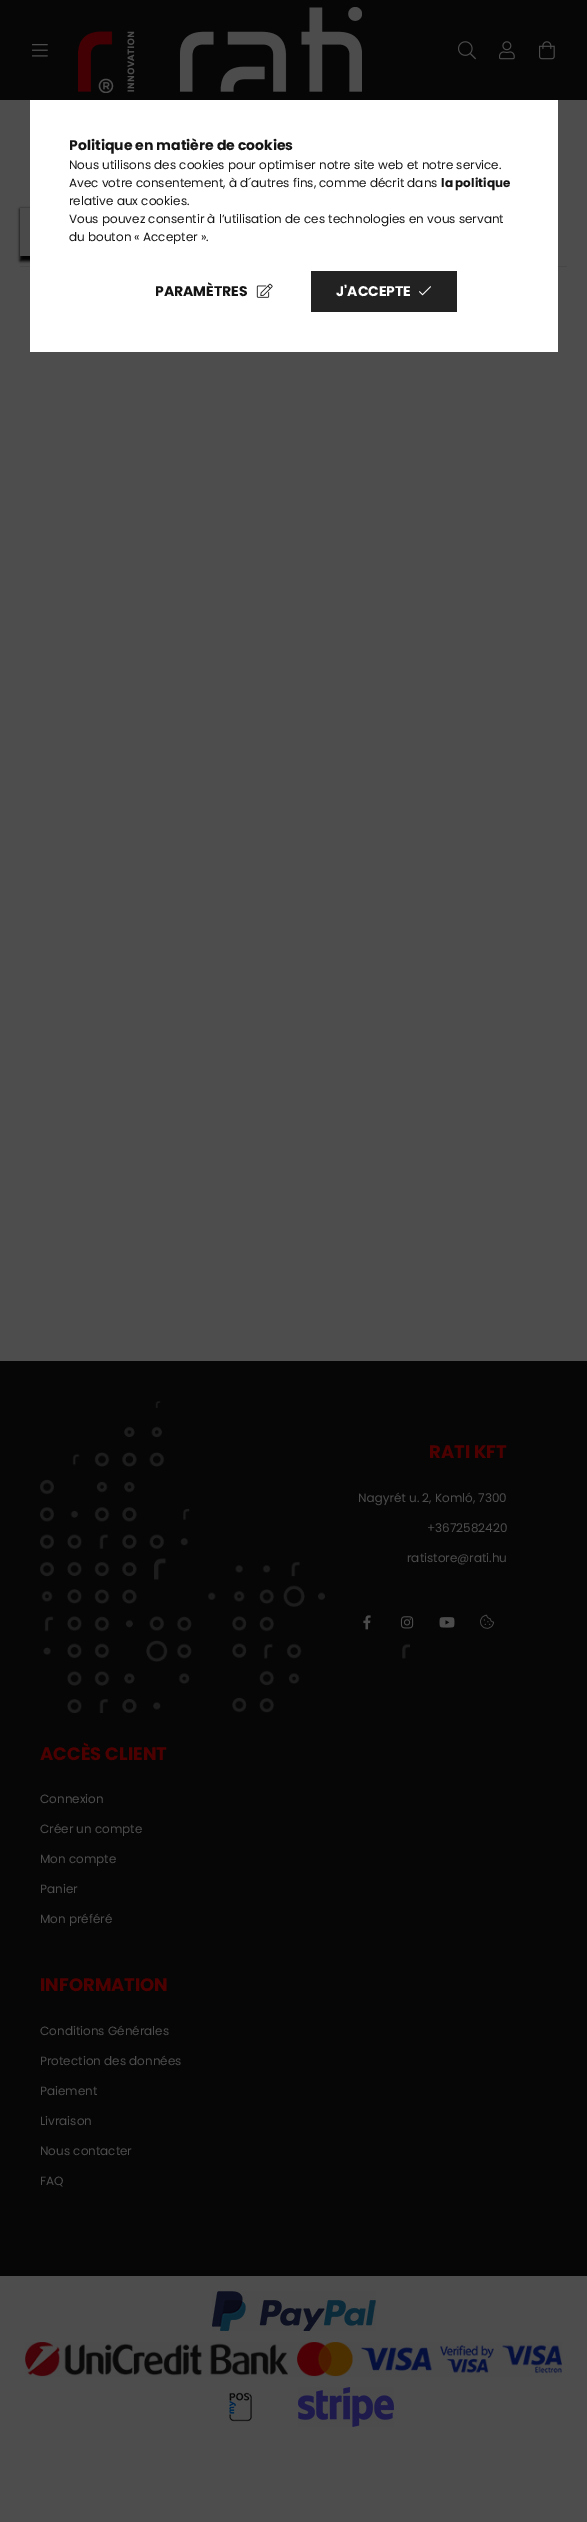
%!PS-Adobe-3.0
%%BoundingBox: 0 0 587 2522
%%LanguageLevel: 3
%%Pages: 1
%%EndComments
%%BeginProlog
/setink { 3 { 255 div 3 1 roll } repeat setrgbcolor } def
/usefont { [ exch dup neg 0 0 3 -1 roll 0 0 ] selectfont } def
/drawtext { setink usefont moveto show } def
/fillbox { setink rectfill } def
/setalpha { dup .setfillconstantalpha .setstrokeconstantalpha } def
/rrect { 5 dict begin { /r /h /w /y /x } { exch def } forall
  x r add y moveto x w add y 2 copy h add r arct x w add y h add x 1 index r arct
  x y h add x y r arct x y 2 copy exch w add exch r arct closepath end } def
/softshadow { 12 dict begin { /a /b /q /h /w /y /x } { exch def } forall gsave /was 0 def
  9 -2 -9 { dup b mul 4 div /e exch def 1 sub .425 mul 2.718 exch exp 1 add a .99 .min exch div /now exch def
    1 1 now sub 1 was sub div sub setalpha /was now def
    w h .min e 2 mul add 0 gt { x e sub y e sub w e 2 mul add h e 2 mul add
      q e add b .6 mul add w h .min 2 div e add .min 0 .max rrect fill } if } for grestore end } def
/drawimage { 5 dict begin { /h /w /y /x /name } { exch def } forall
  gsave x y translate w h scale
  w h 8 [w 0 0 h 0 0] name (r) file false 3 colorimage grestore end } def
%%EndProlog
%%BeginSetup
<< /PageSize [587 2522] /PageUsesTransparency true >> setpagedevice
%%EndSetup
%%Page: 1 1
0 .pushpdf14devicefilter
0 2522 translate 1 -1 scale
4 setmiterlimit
0 0 587 2522 77 77 77 fillbox
20 266 547 1 70 70 70 fillbox
0 0 0 setink
20 209 173 52 0 1.5 1 softshadow
30 100 528 252 255 255 255 fillbox
(Politique en matière de cookies) 69 150 /Poppins-Bold 14 21 21 21 drawtext
(Nous utilisons des cookies pour optimiser notre site web et notre service.) 69 169 /Poppins-Regular 12 21 21 21 drawtext
(Avec votre consentement, à d´autres fins, comme décrit dans) 69 187 /Poppins-Regular 12 21 21 21 drawtext
(la politique) 441 187 /Poppins-Bold 12 21 21 21 drawtext
(relative aux cookies.) 69 205 /Poppins-Regular 12 21 21 21 drawtext
(Vous pouvez consentir à l’utilisation de ces technologies en vous servant) 69 223 /Poppins-Regular 12 21 21 21 drawtext
(du bouton « Accepter ».) 69 241 /Poppins-Regular 12 21 21 21 drawtext
(PARAMÈTRES) 155 296 /Poppins-Bold 14 21 21 21 drawtext
(assets/img1.rgb) 256 283 17 15 drawimage
gsave 311 271 moveto 457 271 lineto 457 312 lineto 311 312 lineto closepath clip newpath
<< /ShadingType 2 /ColorSpace /DeviceRGB /Coords [19 292 457 292] /Extend [true true] /Function << /FunctionType 3 /Domain [0 1] /Functions [<< /FunctionType 2 /Domain [0 1] /C0 [0.082 0.082 0.082] /C1 [0.082 0.082 0.082] /N 1 >> << /FunctionType 2 /Domain [0 1] /C0 [0.082 0.082 0.082] /C1 [0.133 0.133 0.133] /N 1 >> << /FunctionType 2 /Domain [0 1] /C0 [0.133 0.133 0.133] /C1 [0.133 0.133 0.133] /N 1 >>] /Bounds [0.33 0.67] /Encode [0 1 0 1 0 1] >> >> shfill grestore
(J'ACCEPTE) 336 296 /Poppins-Bold 14 255 255 255 drawtext
(assets/img2.rgb) 419 286 12 10 drawimage
0 0 587 100 6 6 6 fillbox
(assets/img3.rgb) 32 44 16 13 drawimage
(assets/img4.rgb) 78 7 284 86 drawimage
(assets/img5.rgb) 458 41 18 19 drawimage
(assets/img6.rgb) 499 41 16 19 drawimage
(assets/img7.rgb) 539 41 16 19 drawimage
20 208 10 48 74 74 74 fillbox
0 1361 587 915 6 6 6 fillbox
(Nagyrét u. 2, Komló, 7300) 358 1502 /Poppins-Regular 12 77 77 77 drawtext
(ratistore@rati.hu) 407 1562 /Poppins-Regular 12 77 77 77 drawtext
(assets/img8.rgb) 40 1401 370 312 drawimage
(RATI KFT) 429 1458 /Poppins-Bold 18 77 0 0 drawtext
(+3672582420) 427 1532 /Poppins-Regular 12 77 77 77 drawtext
(assets/img9.rgb) 363 1615 8 15 drawimage
(assets/img10.rgb) 400 1616 14 13 drawimage
(assets/img11.rgb) 439 1617 16 11 drawimage
(assets/img12.rgb) 480 1614 14 15 drawimage
(ACCÈS CLIENT) 40 1760 /Poppins-Bold 18 77 0 0 drawtext
(Connexion) 40 1803 /Poppins-Regular 12 77 77 77 drawtext
(Créer un compte) 40 1833 /Poppins-Regular 12 77 77 77 drawtext
(Mon compte) 40 1863 /Poppins-Regular 12 77 77 77 drawtext
(Panier) 40 1893 /Poppins-Regular 12 77 77 77 drawtext
(Mon préféré) 40 1923 /Poppins-Regular 12 77 77 77 drawtext
(INFORMATION) 40 1991 /Poppins-Bold 18 77 0 0 drawtext
(Conditions Générales) 40 2035 /Poppins-Regular 12 77 77 77 drawtext
(Protection des données) 40 2065 /Poppins-Regular 12 77 77 77 drawtext
(Paiement) 40 2095 /Poppins-Regular 12 77 77 77 drawtext
(Livraison) 40 2125 /Poppins-Regular 12 77 77 77 drawtext
(Nous contacter) 40 2155 /Poppins-Regular 12 77 77 77 drawtext
(FAQ) 40 2185 /Poppins-Regular 12 77 77 77 drawtext
(assets/img13.rgb) 212 2291 164 40 drawimage
(assets/img14.rgb) 25 2342 537 35 drawimage
(assets/img15.rgb) 229 2392 23 30 drawimage
(assets/img16.rgb) 298 2387 96 40 drawimage
.poppdf14devicefilter showpage
%%EOF
